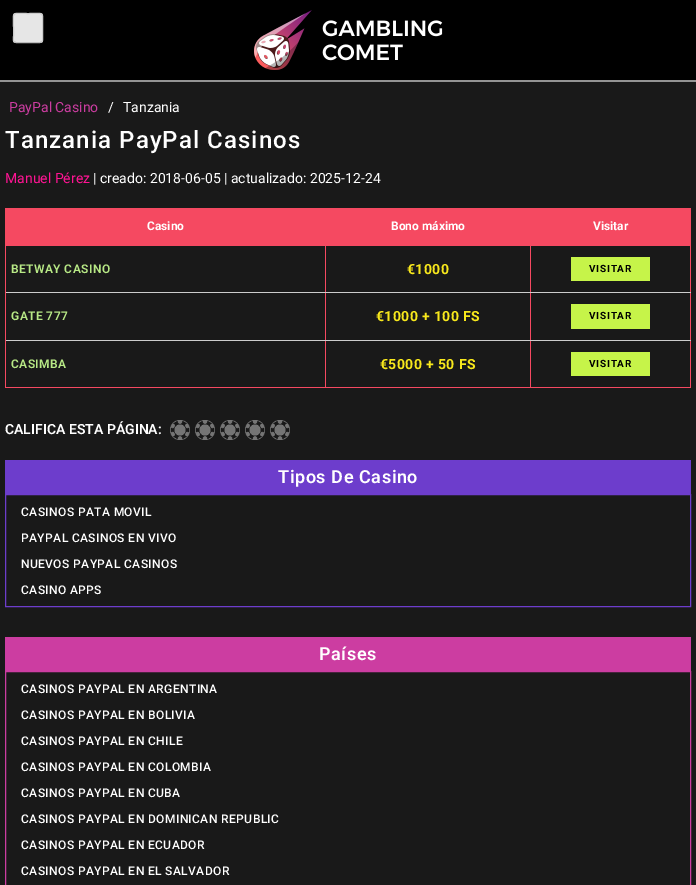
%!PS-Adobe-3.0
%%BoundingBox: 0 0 696 885
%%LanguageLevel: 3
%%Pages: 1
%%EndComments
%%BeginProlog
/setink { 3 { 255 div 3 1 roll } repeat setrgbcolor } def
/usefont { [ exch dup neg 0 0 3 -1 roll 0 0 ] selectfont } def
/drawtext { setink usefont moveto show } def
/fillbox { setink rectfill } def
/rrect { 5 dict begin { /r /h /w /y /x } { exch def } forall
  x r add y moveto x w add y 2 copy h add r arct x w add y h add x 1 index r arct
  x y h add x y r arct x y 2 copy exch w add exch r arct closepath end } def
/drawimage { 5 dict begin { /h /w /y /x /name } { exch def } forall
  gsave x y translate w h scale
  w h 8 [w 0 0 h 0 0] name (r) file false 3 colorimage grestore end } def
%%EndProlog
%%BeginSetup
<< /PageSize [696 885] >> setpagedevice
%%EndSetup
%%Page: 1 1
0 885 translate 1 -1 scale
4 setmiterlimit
0 0 696 885 0 0 0 fillbox
0 80 696 2 148 148 148 fillbox
230 230 230 setink
13 13 30 30 3 rrect fill
187 187 187 setink
42 42 moveto 41.5 42 40.5 42.5 40 42.5 curveto 16 42.5 lineto 15.5 42.5 14.5 42 14 42 curveto stroke
204 204 204 setink
14 42 moveto 13 40.5 13.5 37.5 13.5 36 curveto 13.5 28 lineto 13.5 10.5 10.5 13.5 28 13.5 curveto 45.5 13.5 42.5 10.5 42.5 28 curveto 42.5 36 lineto 42.5 37.5 43 40.5 42 42 curveto stroke
(assets/img1.rgb) 254 10 189 60 drawimage
0 82 696 803 25 25 25 fillbox
(PayPal Casino) 9 112 /Roboto-Regular 14 204 61 161 drawtext
(/) 108 112 /Roboto-Regular 14 255 255 255 drawtext
(Tanzania) 123 112 /Roboto-Regular 14 255 255 255 drawtext
/Roboto-Medium 24 usefont
5 148 moveto 1.1 0 (Tanzania PayPal Casinos) ashow
(Manuel Pérez) 5 183 /Roboto-Regular 14 255 20 147 drawtext
(| creado: 2018-06-05 | actualizado: 2025-12-24) 93 183 /Roboto-Regular 14 255 255 255 drawtext
6 208 685 38 245 73 97 fillbox
(Casino) 147 230 /Roboto-Bold 12 255 255 255 drawtext
(Bono máximo) 391 230 /Roboto-Bold 12 255 255 255 drawtext
(Visitar) 593 230 /Roboto-Bold 12 255 255 255 drawtext
690 245 1 143 245 73 97 fillbox
530 387 161 1 245 73 97 fillbox
530 340 1 48 245 73 97 fillbox
530 340 161 1 204 204 204 fillbox
530 292 1 49 245 73 97 fillbox
530 292 161 1 204 204 204 fillbox
530 245 1 48 245 73 97 fillbox
325 387 206 1 245 73 97 fillbox
325 340 1 48 245 73 97 fillbox
325 340 206 1 204 204 204 fillbox
325 292 1 49 245 73 97 fillbox
325 292 206 1 204 204 204 fillbox
325 245 1 48 245 73 97 fillbox
5 387 321 1 245 73 97 fillbox
5 340 1 48 245 73 97 fillbox
5 340 321 1 204 204 204 fillbox
5 292 1 49 245 73 97 fillbox
5 292 321 1 204 204 204 fillbox
5 208 1 85 245 73 97 fillbox
/Roboto-SemiBold 12 usefont
184 233 134 setink
11 273 moveto 0.4 0 (BETWAY CASINO) ashow
/Roboto-Bold 14 usefont
248 232 28 setink
407 274 moveto 0.4 0 (€1000) ashow
571 257 79 24 198 244 73 fillbox
/Roboto-Bold 10 usefont
0 0 0 setink
589 272 moveto 0.75 0 (VISITAR) ashow
/Roboto-SemiBold 12 usefont
184 233 134 setink
11 320 moveto 0.4 0 (GATE 777) ashow
/Roboto-Bold 14 usefont
248 232 28 setink
376 321 moveto 0.4 0 (€1000 + 100 FS) ashow
571 304 79 25 198 244 73 fillbox
/Roboto-Bold 10 usefont
0 0 0 setink
589 319 moveto 0.75 0 (VISITAR) ashow
/Roboto-SemiBold 12 usefont
184 233 134 setink
11 368 moveto 0.4 0 (CASIMBA) ashow
/Roboto-Bold 14 usefont
248 232 28 setink
380 369 moveto 0.4 0 (€5000 + 50 FS) ashow
571 352 79 24 198 244 73 fillbox
/Roboto-Bold 10 usefont
0 0 0 setink
589 367 moveto 0.75 0 (VISITAR) ashow
(CALIFICA ESTA PÁGINA:) 5 434 /Roboto-SemiBold 14 255 255 255 drawtext
(assets/img2.rgb) 170 420 20 20 drawimage
(assets/img2.rgb) 195 420 20 20 drawimage
(assets/img3.rgb) 220 420 20 20 drawimage
(assets/img4.rgb) 245 420 20 20 drawimage
(assets/img5.rgb) 270 420 20 20 drawimage
5 460 686 34 109 61 204 fillbox
/Roboto-SemiBold 18 usefont
255 255 255 setink
278 483 moveto 0.6 0 (Tipos De Casino) ashow
109 61 204 setink
5.5 494.5 685 112 rectstroke
/Roboto-Medium 12 usefont
255 255 255 setink
21 516 moveto 0.4 0 (CASINOS PATA MOVIL) ashow
21 542 moveto 0.4 0 (PAYPAL CASINOS EN VIVO) ashow
21 568 moveto 0.4 0 (NUEVOS PAYPAL CASINOS) ashow
21 594 moveto 0.4 0 (CASINO APPS) ashow
5 637 686 34 204 61 161 fillbox
/Roboto-SemiBold 18 usefont
255 255 255 setink
319 660 moveto 0.6 0 (Países) ashow
204 61 161 setink
5.5 671.5 685 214 rectstroke
/Roboto-Medium 12 usefont
255 255 255 setink
21 693 moveto 0.4 0 (CASINOS PAYPAL EN ARGENTINA) ashow
21 719 moveto 0.4 0 (CASINOS PAYPAL EN BOLIVIA) ashow
21 745 moveto 0.4 0 (CASINOS PAYPAL EN CHILE) ashow
21 771 moveto 0.4 0 (CASINOS PAYPAL EN COLOMBIA) ashow
21 797 moveto 0.4 0 (CASINOS PAYPAL EN CUBA) ashow
21 823 moveto 0.4 0 (CASINOS PAYPAL EN DOMINICAN REPUBLIC) ashow
21 849 moveto 0.4 0 (CASINOS PAYPAL EN ECUADOR) ashow
21 875 moveto 0.4 0 (CASINOS PAYPAL EN EL SALVADOR) ashow
showpage
%%EOF
